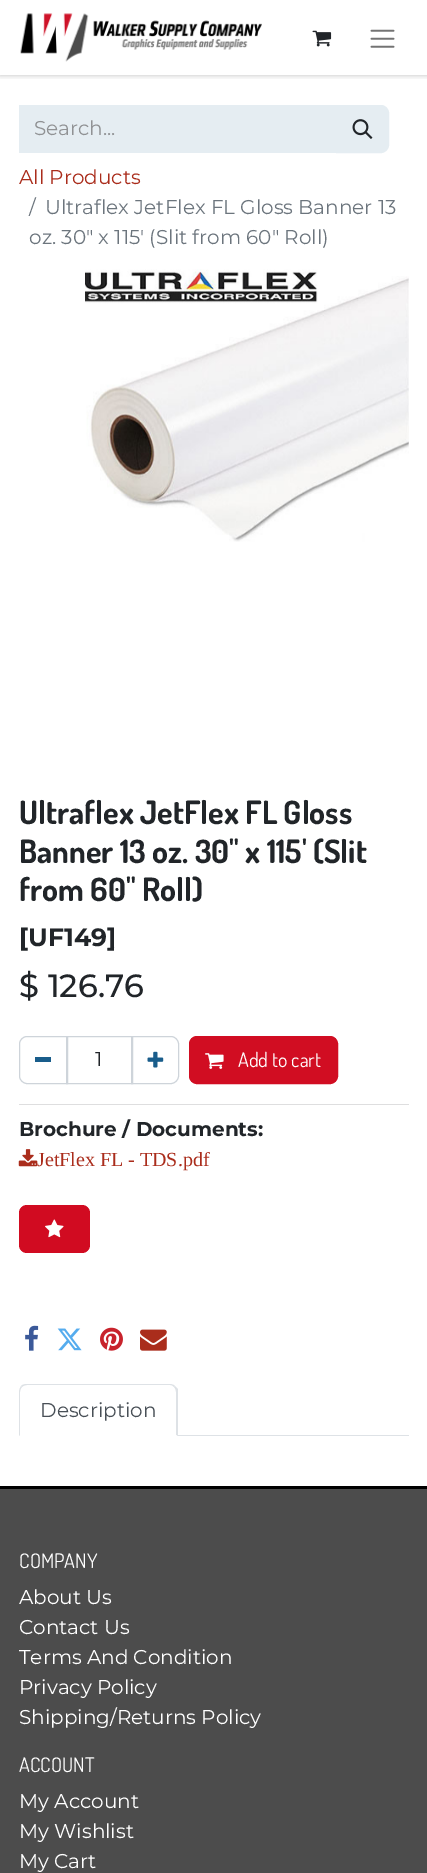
%!PS-Adobe-3.0
%%BoundingBox: 0 0 427 1873
%%LanguageLevel: 3
%%Pages: 1
%%EndComments
%%BeginProlog
/setink { 3 { 255 div 3 1 roll } repeat setrgbcolor } def
/usefont { [ exch dup neg 0 0 3 -1 roll 0 0 ] selectfont } def
/drawtext { setink usefont moveto show } def
/fillbox { setink rectfill } def
/setalpha { dup .setfillconstantalpha .setstrokeconstantalpha } def
/rrect { 5 dict begin { /r /h /w /y /x } { exch def } forall
  x r add y moveto x w add y 2 copy h add r arct x w add y h add x 1 index r arct
  x y h add x y r arct x y 2 copy exch w add exch r arct closepath end } def
/softshadow { 12 dict begin { /a /b /q /h /w /y /x } { exch def } forall gsave /was 0 def
  9 -2 -9 { dup b mul 4 div /e exch def 1 sub .425 mul 2.718 exch exp 1 add a .99 .min exch div /now exch def
    1 1 now sub 1 was sub div sub setalpha /was now def
    w h .min e 2 mul add 0 gt { x e sub y e sub w e 2 mul add h e 2 mul add
      q e add b .6 mul add w h .min 2 div e add .min 0 .max rrect fill } if } for grestore end } def
/drawimage { 5 dict begin { /h /w /y /x /name } { exch def } forall
  gsave x y translate w h scale
  w h 8 [w 0 0 h 0 0] name (r) file false 3 colorimage grestore end } def
%%EndProlog
%%BeginSetup
<< /PageSize [427 1873] /PageUsesTransparency true >> setpagedevice
%%EndSetup
%%Page: 1 1
0 .pushpdf14devicefilter
0 1873 translate 1 -1 scale
4 setmiterlimit
0 0 427 1873 255 255 255 fillbox
gsave
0 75 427 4 rectclip
0 0 0 setink
0 0 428 75 0 3 0.25 softshadow
grestore
(assets/img1.rgb) 20 13 242 49 drawimage
(assets/img2.rgb) 312 30 20 17 drawimage
(assets/img3.rgb) 370 29 25 19 drawimage
19 105 317 48 229 237 242 fillbox
(Search...) 34 135 /Montserrat-Regular 20 144 146 148 drawtext
229 237 242 setink
336.5 105.5 moveto 381 105.5 lineto 385 105.5 388.5 109 388.5 113 curveto 388.5 145 lineto 388.5 149 385 152.5 381 152.5 curveto 336.5 152.5 lineto closepath gsave fill grestore
stroke
(assets/img4.rgb) 352 119 21 20 drawimage
(All Products) 19 184 /Montserrat-Regular 20 170 45 28 drawtext
(/) 29 214 /Montserrat-Regular 20 108 117 125 drawtext
(Ultraflex JetFlex FL Gloss Banner 13) 45 214 /Montserrat-Regular 20 108 117 125 drawtext
(oz. 30" x 115' \(Slit from 60" Roll\)) 29 244 /Montserrat-Regular 20 108 117 125 drawtext
(assets/img5.rgb) 85 269 324 273 drawimage
(Ultraflex JetFlex FL Gloss) 19 824 /Dosis-Bold 32.1 33 37 41 drawtext
(Banner 13 oz. 30" x 115' \(Slit) 19 863 /Dosis-Bold 32.1 33 37 41 drawtext
(from 60" Roll\)) 19 901 /Dosis-Bold 32.1 33 37 41 drawtext
([UF149]) 19 946 /Montserrat-Bold 25 33 37 41 drawtext
($ 126.76) 19 997 /Montserrat-Medium 32.1 33 37 41 drawtext
206 212 218 setink
66.5 1036.5 66 47 rectstroke
27 1036.5 moveto 67.5 1036.5 lineto 67.5 1083.5 lineto 27 1083.5 lineto 23 1083.5 19.5 1080 19.5 1076 curveto 19.5 1044 lineto 19.5 1040 23 1036.5 27 1036.5 curveto closepath stroke
35 1057 16 5 25 93 139 fillbox
(1) 95 1066 /Montserrat-Regular 20 33 37 41 drawtext
206 212 218 setink
131.5 1036.5 moveto 171 1036.5 lineto 175 1036.5 178.5 1040 178.5 1044 curveto 178.5 1076 lineto 178.5 1080 175 1083.5 171 1083.5 curveto 131.5 1083.5 lineto closepath stroke
(assets/img6.rgb) 147 1051 17 17 drawimage
209 13 34 setink
189.5 1036.5 148 47 7.5 rrect gsave fill grestore
stroke
(assets/img7.rgb) 205 1053 19 16 drawimage
(Add to cart) 238 1067 /Dosis-Regular 20 255 255 255 drawtext
19 1104 390 1 222 222 223 fillbox
(Brochure / Documents:) 19 1136 /Montserrat-Bold 20 33 37 41 drawtext
(assets/img8.rgb) 18 1149 20 18 drawimage
(JetFlex FL - TDS.pdf) 37 1166 /LiberationSerif-Regular 20 170 45 28 drawtext
209 11 33 setink
19 1205 71 48 8 rrect fill
(assets/img9.rgb) 45 1219 19 19 drawimage
(assets/img10.rgb) 25 1325 14 26 drawimage
(assets/img11.rgb) 57 1328 25 23 drawimage
(assets/img12.rgb) 100 1327 23 24 drawimage
(assets/img13.rgb) 140 1329 27 22 drawimage
178 1435 231 1 222 226 230 fillbox
27 1384 moveto 24 1384 22 1385 21 1386 curveto 22 1387 lineto 23 1386 25 1385 27 1385 curveto 170 1385 lineto 172 1385 173 1386 174 1387 curveto 175 1386 lineto 174 1385 172 1384 170 1384 curveto closepath fill
175 1386 moveto 178 1389 lineto 178 1436 lineto 176 1435 lineto 176 1392 lineto 176 1390 175 1388 174 1387 curveto closepath fill
255 255 255 setink
177 1436 moveto 19 1436 lineto 20 1435 lineto 176 1435 lineto closepath fill
222 226 230 setink
21 1386 moveto 20 1388 19 1390 19 1392 curveto 19 1436 lineto 20 1435 lineto 20 1392 lineto 20 1390 21 1388 22 1387 curveto closepath fill
(Description) 40 1417 /Montserrat-Regular 20 73 80 87 drawtext
0 1489 427 384 76 76 76 fillbox
0 1486 427 3 0 0 0 fillbox
(COMPANY) 19 1568 /Dosis-Regular 20 255 255 255 drawtext
(About Us) 19 1604 /Montserrat-Regular 20 255 255 255 drawtext
(Contact Us) 19 1634 /Montserrat-Regular 20 255 255 255 drawtext
(Terms And Condition) 19 1664 /Montserrat-Regular 20 255 255 255 drawtext
(Privacy Policy) 19 1694 /Montserrat-Regular 20 255 255 255 drawtext
(Shipping/Returns Policy) 19 1724 /Montserrat-Regular 20 255 255 255 drawtext
(ACCOUNT) 19 1772 /Dosis-Regular 20 255 255 255 drawtext
(My Account) 19 1808 /Montserrat-Regular 20 255 255 255 drawtext
(My Wishlist) 19 1838 /Montserrat-Regular 20 255 255 255 drawtext
(My Cart) 19 1868 /Montserrat-Regular 20 255 255 255 drawtext
.poppdf14devicefilter showpage
%%EOF
